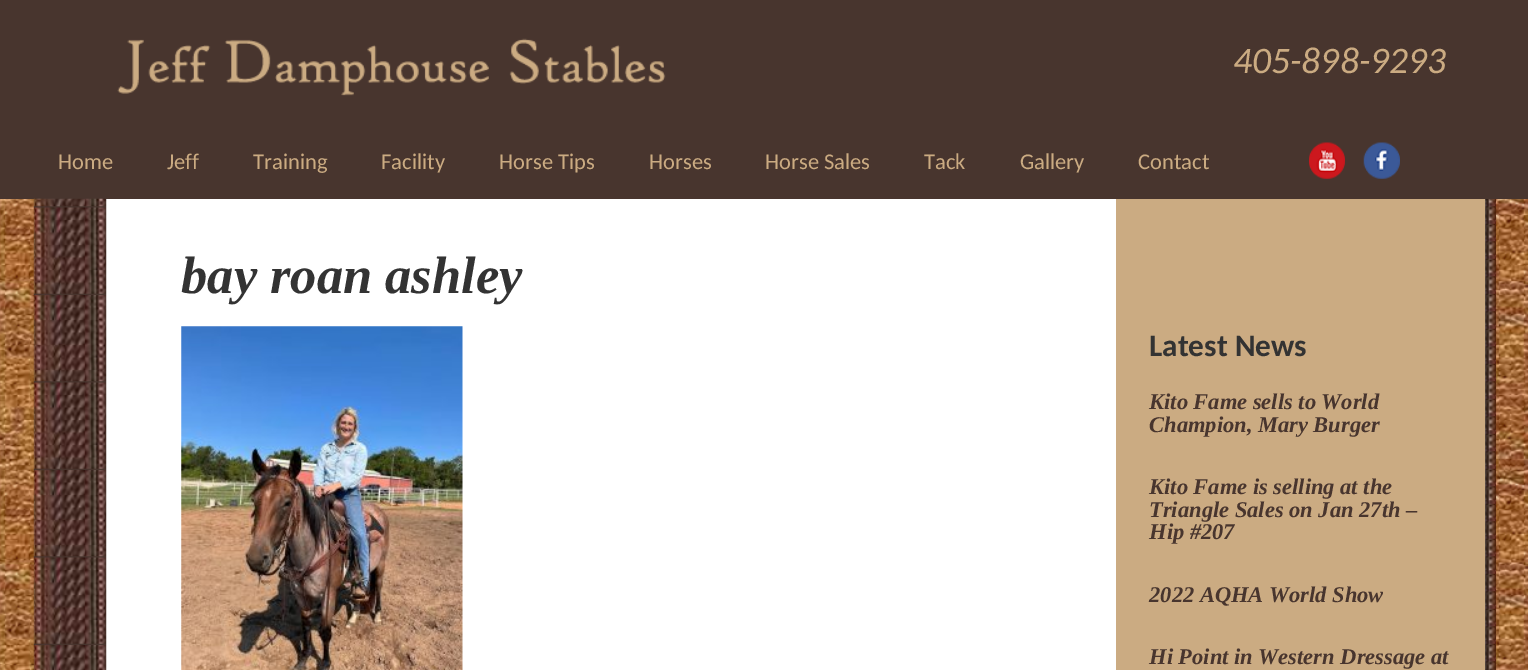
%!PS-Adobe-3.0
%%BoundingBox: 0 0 1528 670
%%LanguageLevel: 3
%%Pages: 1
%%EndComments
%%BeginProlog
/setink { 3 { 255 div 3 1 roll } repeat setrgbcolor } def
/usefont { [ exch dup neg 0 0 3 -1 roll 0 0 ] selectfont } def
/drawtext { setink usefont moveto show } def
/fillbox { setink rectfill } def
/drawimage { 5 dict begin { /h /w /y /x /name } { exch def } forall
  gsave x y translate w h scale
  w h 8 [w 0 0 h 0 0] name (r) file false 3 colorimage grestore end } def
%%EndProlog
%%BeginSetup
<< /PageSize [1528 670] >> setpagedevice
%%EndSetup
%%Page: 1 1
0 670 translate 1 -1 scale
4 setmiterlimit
0 0 1528 670 255 255 255 fillbox
(assets/img1.rgb) 0 199 1528 471 drawimage
0 0 1528 199 72 53 46 fillbox
(assets/img2.rgb) 117 38 549 58 drawimage
(405-898-9293) 1233 73 /Carlito-Italic 37.5 203 171 130 drawtext
(Home) 58 169 /Carlito-Regular 22.5 203 171 130 drawtext
(Jeff) 167 169 /Carlito-Regular 22.5 203 171 130 drawtext
(Training) 253 169 /Carlito-Regular 22.5 203 171 130 drawtext
(Facility) 381 169 /Carlito-Regular 22.5 203 171 130 drawtext
(Horse Tips) 499 169 /Carlito-Regular 22.5 203 171 130 drawtext
(Horses) 649 169 /Carlito-Regular 22.5 203 171 130 drawtext
(Horse Sales) 765 169 /Carlito-Regular 22.5 203 171 130 drawtext
(Tack) 924 169 /Carlito-Regular 22.5 203 171 130 drawtext
(Gallery) 1020 169 /Carlito-Regular 22.5 203 171 130 drawtext
(Contact) 1138 169 /Carlito-Regular 22.5 203 171 130 drawtext
(assets/img3.rgb) 1309 142 36 37 drawimage
(assets/img4.rgb) 1363 142 37 37 drawimage
106 199 1010 471 255 255 255 fillbox
(assets/img5.rgb) 33 198 74 472 drawimage
(assets/img6.rgb) 1485 199 12 471 drawimage
(bay roan ashley) 181 293 /LiberationSerif-BoldItalic 52.5 51 51 51 drawtext
(assets/img7.rgb) 181 326 282 344 drawimage
1116 199 369 471 203 171 130 fillbox
(Latest News) 1149 356 /Carlito-Bold 31.25 51 51 51 drawtext
(Kito Fame sells to World) 1149 409 /LiberationSerif-BoldItalic 22.5 72 53 46 drawtext
(Champion, Mary Burger) 1149 432 /LiberationSerif-BoldItalic 22.5 72 53 46 drawtext
(Kito Fame is selling at the) 1149 494 /LiberationSerif-BoldItalic 22.5 72 53 46 drawtext
(Triangle Sales on Jan 27th –) 1149 517 /LiberationSerif-BoldItalic 22.5 72 53 46 drawtext
(Hip #207) 1149 539 /LiberationSerif-BoldItalic 22.5 72 53 46 drawtext
(2022 AQHA World Show) 1149 602 /LiberationSerif-BoldItalic 22.5 72 53 46 drawtext
(Hi Point in Western Dressage at) 1149 664 /LiberationSerif-BoldItalic 22.5 72 53 46 drawtext
showpage
%%EOF
